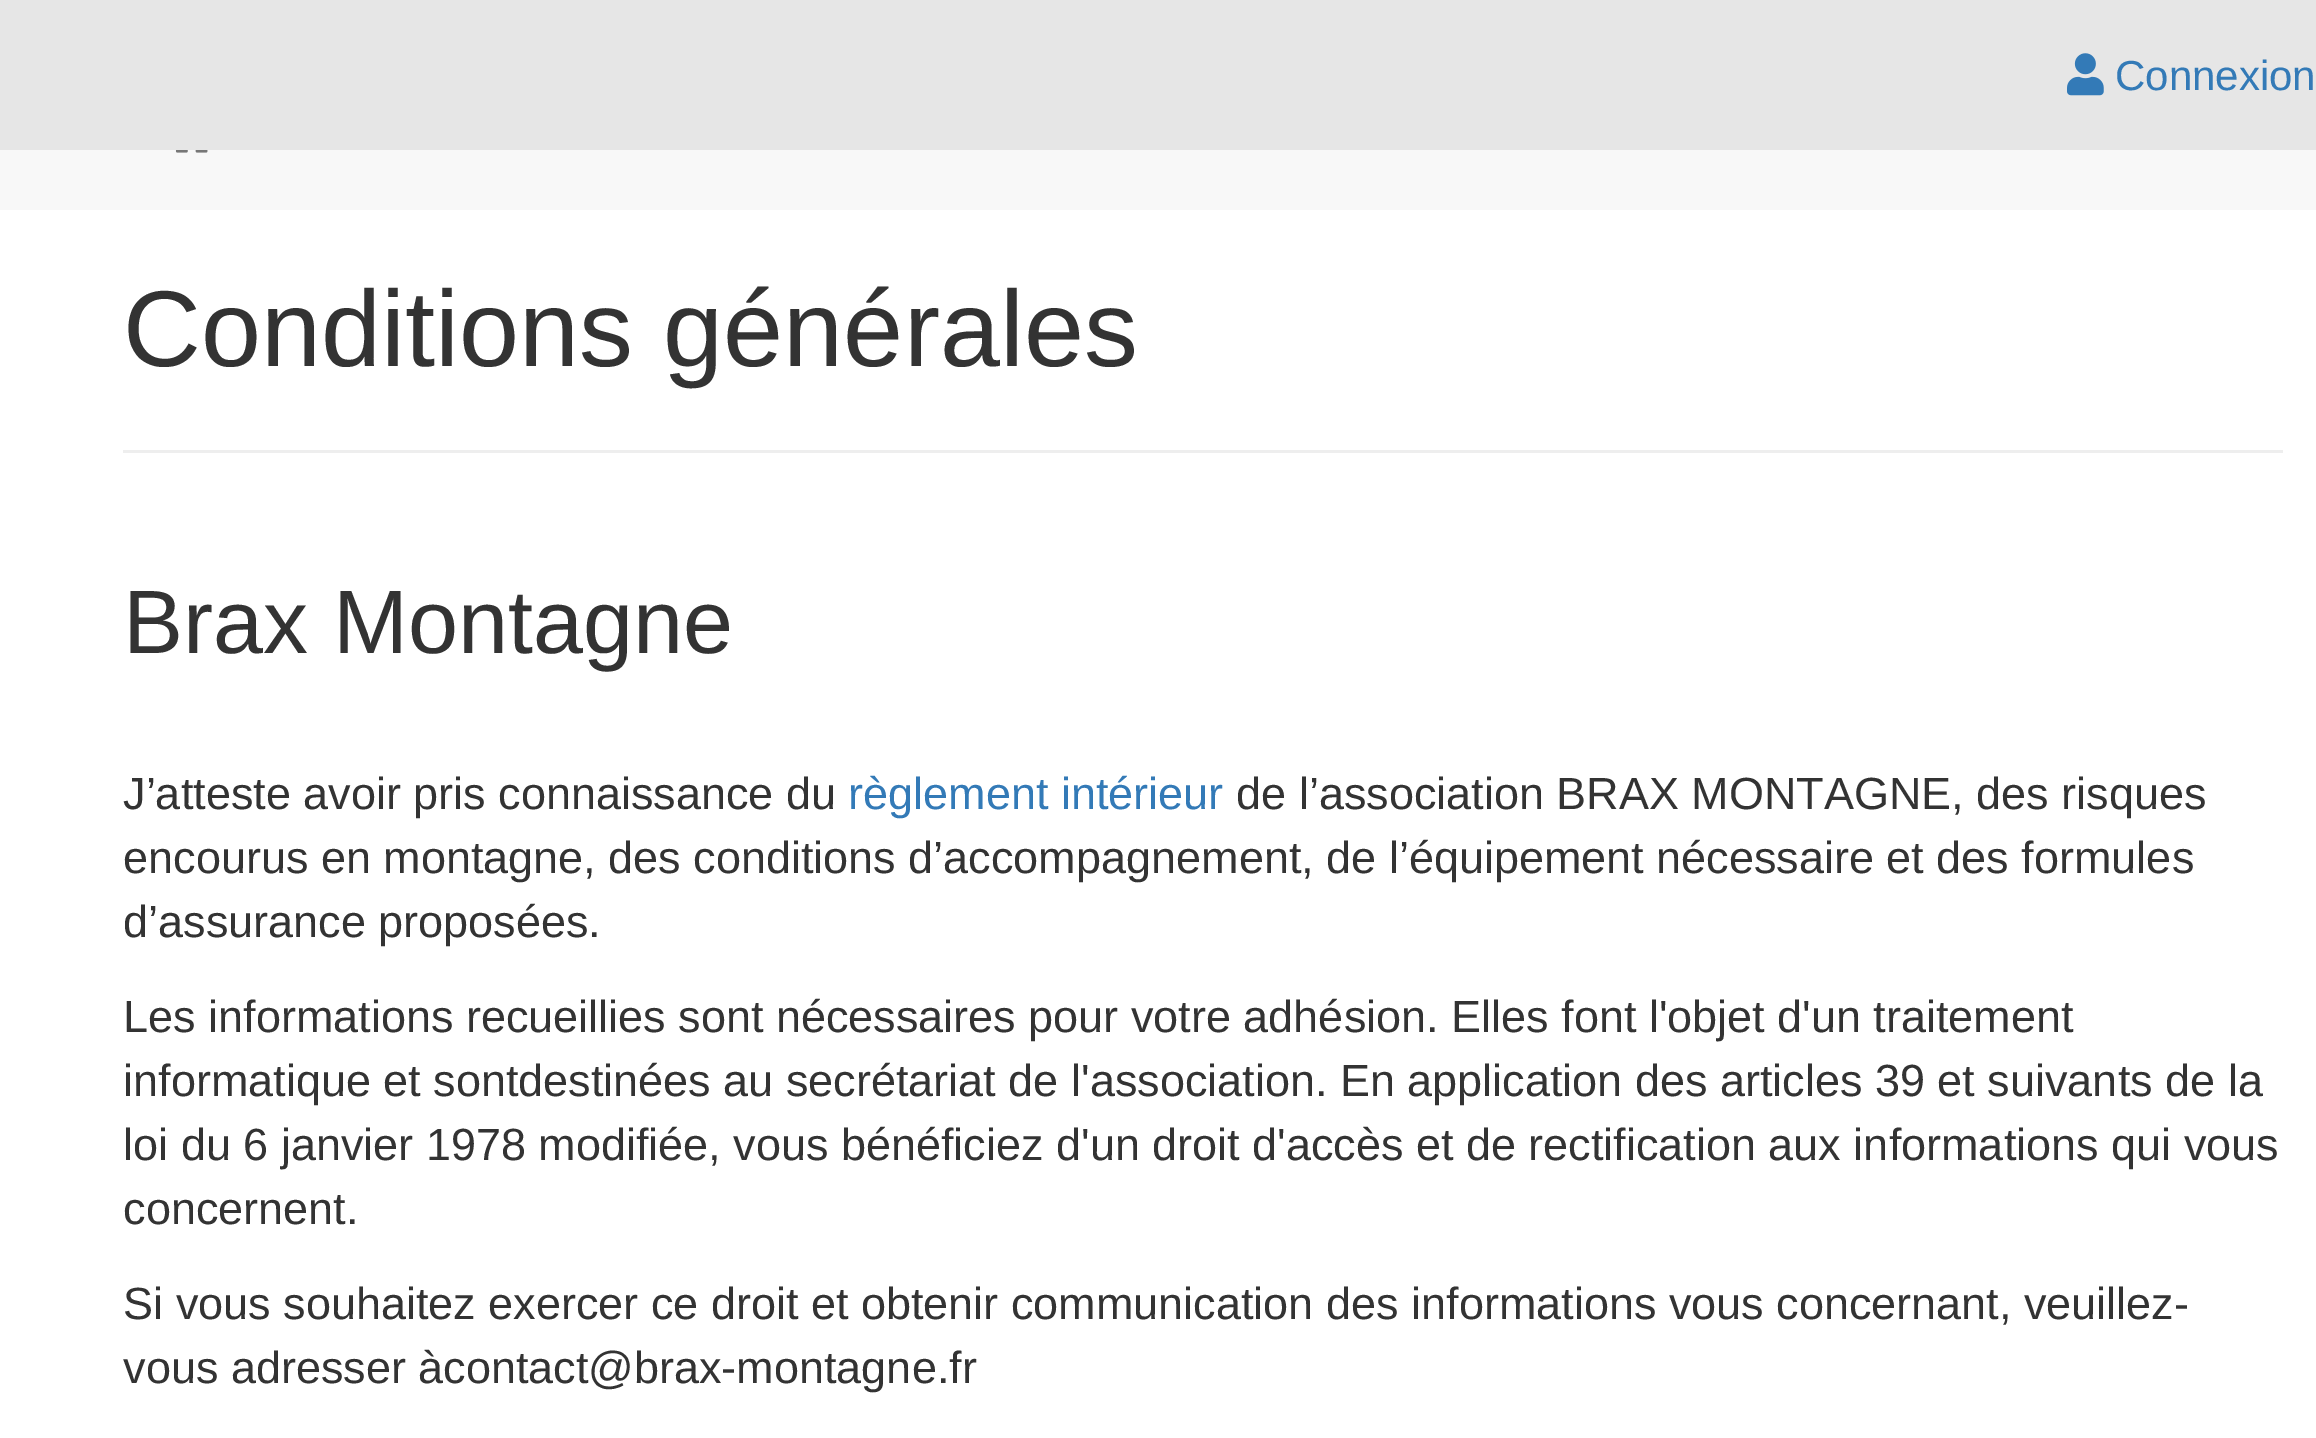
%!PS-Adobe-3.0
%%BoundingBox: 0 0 2316 1438
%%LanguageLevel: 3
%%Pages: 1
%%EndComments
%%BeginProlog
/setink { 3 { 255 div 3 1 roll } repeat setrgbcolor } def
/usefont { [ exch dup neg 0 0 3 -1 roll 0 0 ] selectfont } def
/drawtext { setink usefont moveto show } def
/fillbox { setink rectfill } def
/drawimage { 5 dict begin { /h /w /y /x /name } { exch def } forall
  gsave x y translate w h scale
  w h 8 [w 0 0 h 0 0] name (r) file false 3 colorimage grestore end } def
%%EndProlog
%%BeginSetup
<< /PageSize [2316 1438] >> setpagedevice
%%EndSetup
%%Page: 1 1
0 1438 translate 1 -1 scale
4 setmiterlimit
0 0 2316 1438 255 255 255 fillbox
0 0 2316 150 230 230 230 fillbox
(assets/img1.rgb) 2067 53 37 43 drawimage
(Connexion) 2115 90 /LiberationSans-Regular 42 51 122 183 drawtext
0 150 2316 60 248 248 248 fillbox
(assets/img2.rgb) 175 150 33 3 drawimage
(Conditions générales) 123 366 /LiberationSans-Regular 108 51 51 51 drawtext
123 450 2160 3 238 238 238 fillbox
(Brax Montagne) 123 653 /LiberationSans-Regular 90 51 51 51 drawtext
(J’atteste avoir pris connaissance du) 123 809 /LiberationSans-Regular 45 51 51 51 drawtext
(règlement intérieur) 848 809 /LiberationSans-Regular 45 51 122 183 drawtext
(de l’association BRAX MONTAGNE, des risques) 1236 809 /LiberationSans-Regular 45 51 51 51 drawtext
(encourus en montagne, des conditions d’accompagnement, de l’équipement nécessaire et des formules) 123 873 /LiberationSans-Regular 45 51 51 51 drawtext
(d’assurance proposées.) 123 937 /LiberationSans-Regular 45 51 51 51 drawtext
(Les informations recueillies sont nécessaires pour votre adhésion. Elles font l'objet d'un traitement) 123 1032 /LiberationSans-Regular 45 51 51 51 drawtext
(informatique et sontdestinées au secrétariat de l'association. En application des articles 39 et suivants de la) 123 1096 /LiberationSans-Regular 45 51 51 51 drawtext
(loi du 6 janvier 1978 modifiée, vous bénéficiez d'un droit d'accès et de rectification aux informations qui vous) 123 1160 /LiberationSans-Regular 45 51 51 51 drawtext
(concernent.) 123 1224 /LiberationSans-Regular 45 51 51 51 drawtext
(Si vous souhaitez exercer ce droit et obtenir communication des informations vous concernant, veuillez-) 123 1319 /LiberationSans-Regular 45 51 51 51 drawtext
(vous adresser àcontact@brax-montagne.fr) 123 1383 /LiberationSans-Regular 45 51 51 51 drawtext
showpage
%%EOF
